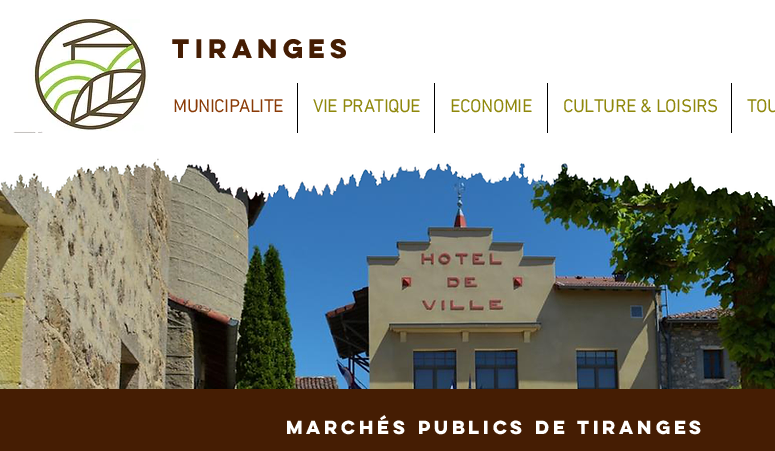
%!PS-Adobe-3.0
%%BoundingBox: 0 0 775 451
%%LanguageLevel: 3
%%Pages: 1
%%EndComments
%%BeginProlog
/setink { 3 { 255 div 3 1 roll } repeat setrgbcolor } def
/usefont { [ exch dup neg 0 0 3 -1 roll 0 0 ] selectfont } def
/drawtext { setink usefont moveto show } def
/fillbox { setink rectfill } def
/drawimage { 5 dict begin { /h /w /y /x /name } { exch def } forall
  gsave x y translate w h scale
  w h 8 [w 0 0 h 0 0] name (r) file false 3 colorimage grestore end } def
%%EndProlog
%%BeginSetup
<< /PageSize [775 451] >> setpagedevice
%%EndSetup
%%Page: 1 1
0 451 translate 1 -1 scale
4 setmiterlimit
0 0 775 451 255 255 255 fillbox
(assets/img1.rgb) 13 19 135 114 drawimage
(TIRANGES) 172 58 /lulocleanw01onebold-Bold 24 69 29 3 drawtext
(MUNICIPALITE) 173 112 /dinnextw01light-Bold 18 138 58 6 drawtext
297 83 1 50 0 0 0 fillbox
(VIE PRATIQUE) 313 112 /dinnextw01light-Bold 18 143 136 11 drawtext
434 83 1 50 0 0 0 fillbox
(ECONOMIE) 450 112 /dinnextw01light-Bold 18 143 136 11 drawtext
547 83 1 50 0 0 0 fillbox
(CULTURE & LOISIRS) 563 112 /dinnextw01light-Bold 18 143 136 11 drawtext
731 83 1 50 0 0 0 fillbox
(TOU) 747 112 /dinnextw01light-Bold 18 143 136 11 drawtext
(assets/img2.rgb) 0 158 775 231 drawimage
0 389 775 62 69 29 3 fillbox
(MARCHéS PUBLICS DE TIRANGES) 286 434 /lulocleanw01onebold-Bold 17 255 255 255 drawtext
showpage
%%EOF
